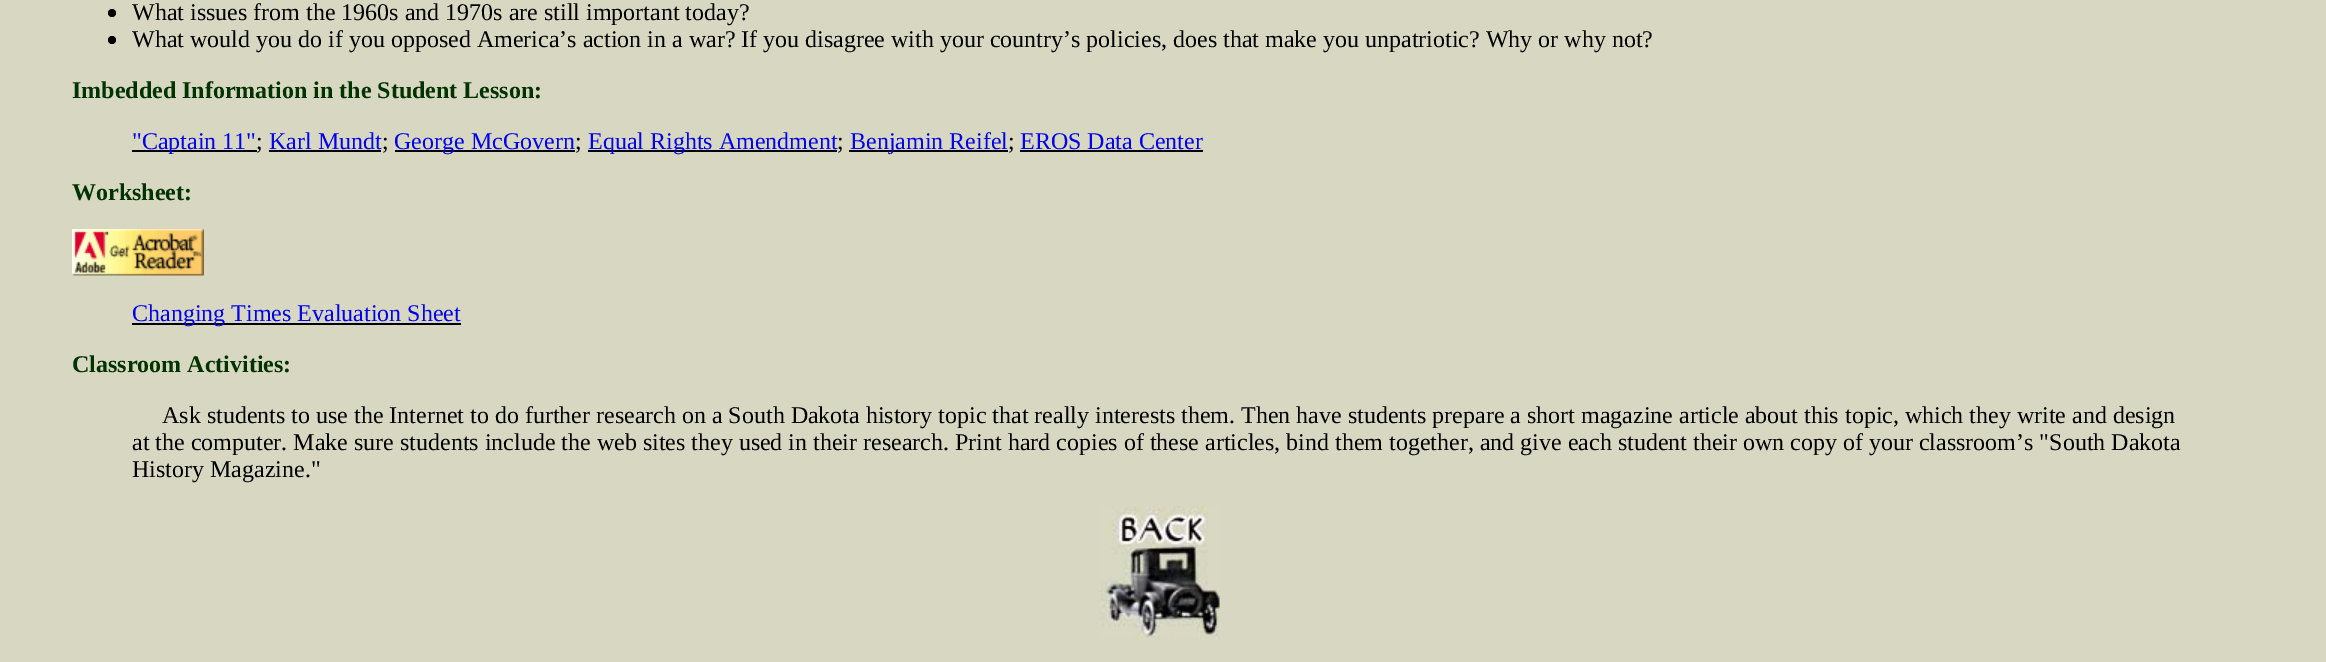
%!PS-Adobe-3.0
%%BoundingBox: 0 0 2326 662
%%LanguageLevel: 3
%%Pages: 1
%%EndComments
%%BeginProlog
/setink { 3 { 255 div 3 1 roll } repeat setrgbcolor } def
/usefont { [ exch dup neg 0 0 3 -1 roll 0 0 ] selectfont } def
/drawtext { setink usefont moveto show } def
/fillbox { setink rectfill } def
/disc { newpath 0 360 arc closepath } def
/drawimage { 5 dict begin { /h /w /y /x /name } { exch def } forall
  gsave x y translate w h scale
  w h 8 [w 0 0 h 0 0] name (r) file false 3 colorimage grestore end } def
%%EndProlog
%%BeginSetup
<< /PageSize [2326 662] >> setpagedevice
%%EndSetup
%%Page: 1 1
0 662 translate 1 -1 scale
4 setmiterlimit
0 0 2326 662 216 216 194 fillbox
0 0 0 setink
112 13 4 disc fill
(What issues from the 1960s and 1970s are still important today?) 132 20 /LiberationSerif-Regular 24 0 0 0 drawtext
112 40 4 disc fill
(What would you do if you opposed America’s action in a war? If you disagree with your country’s policies, does that make you unpatriotic? Why or why not?) 132 47 /LiberationSerif-Regular 24 0 0 0 drawtext
(Imbedded Information in the Student Lesson:) 72 98 /LiberationSerif-Bold 24 0 51 0 drawtext
132 150 125 2 0 0 0 fillbox
("Captain 11") 132 149 /LiberationSerif-Regular 24 0 0 238 drawtext
(;) 256 149 /LiberationSerif-Regular 24 0 0 0 drawtext
(Karl Mundt) 269 149 /LiberationSerif-Regular 24 0 0 238 drawtext
269 150 112 2 0 0 0 fillbox
(;) 382 149 /LiberationSerif-Regular 24 0 0 0 drawtext
395 150 180 2 0 0 0 fillbox
(George McGovern) 394 149 /LiberationSerif-Regular 24 0 0 238 drawtext
(;) 575 149 /LiberationSerif-Regular 24 0 0 0 drawtext
588 150 249 2 0 0 0 fillbox
(Equal Rights Amendment) 588 149 /LiberationSerif-Regular 24 0 0 238 drawtext
(;) 837 149 /LiberationSerif-Regular 24 0 0 0 drawtext
849 150 159 2 0 0 0 fillbox
(Benjamin Reifel) 850 149 /LiberationSerif-Regular 24 0 0 238 drawtext
(;) 1008 149 /LiberationSerif-Regular 24 0 0 0 drawtext
(EROS Data Center) 1020 149 /LiberationSerif-Regular 24 0 0 238 drawtext
1020 150 183 2 0 0 0 fillbox
(Worksheet:) 72 200 /LiberationSerif-Bold 24 0 51 0 drawtext
(assets/img1.rgb) 72 229 132 47 drawimage
132 323 329 2 0 0 0 fillbox
(Changing Times Evaluation Sheet) 132 321 /LiberationSerif-Regular 24 0 0 238 drawtext
(Classroom Activities:) 72 372 /LiberationSerif-Bold 24 0 51 0 drawtext
(Ask students to use the Internet to do further research on a South Dakota history topic that really interests them. Then have students prepare a short magazine article about this topic, which they write and design) 162 423 /LiberationSerif-Regular 24 0 0 0 drawtext
(at the computer. Make sure students include the web sites they used in their research. Print hard copies of these articles, bind them together, and give each student their own copy of your classroom’s "South Dakota) 132 450 /LiberationSerif-Regular 24 0 0 0 drawtext
(History Magazine.") 132 477 /LiberationSerif-Regular 24 0 0 0 drawtext
(assets/img2.rgb) 1099 506 122 133 drawimage
showpage
%%EOF
